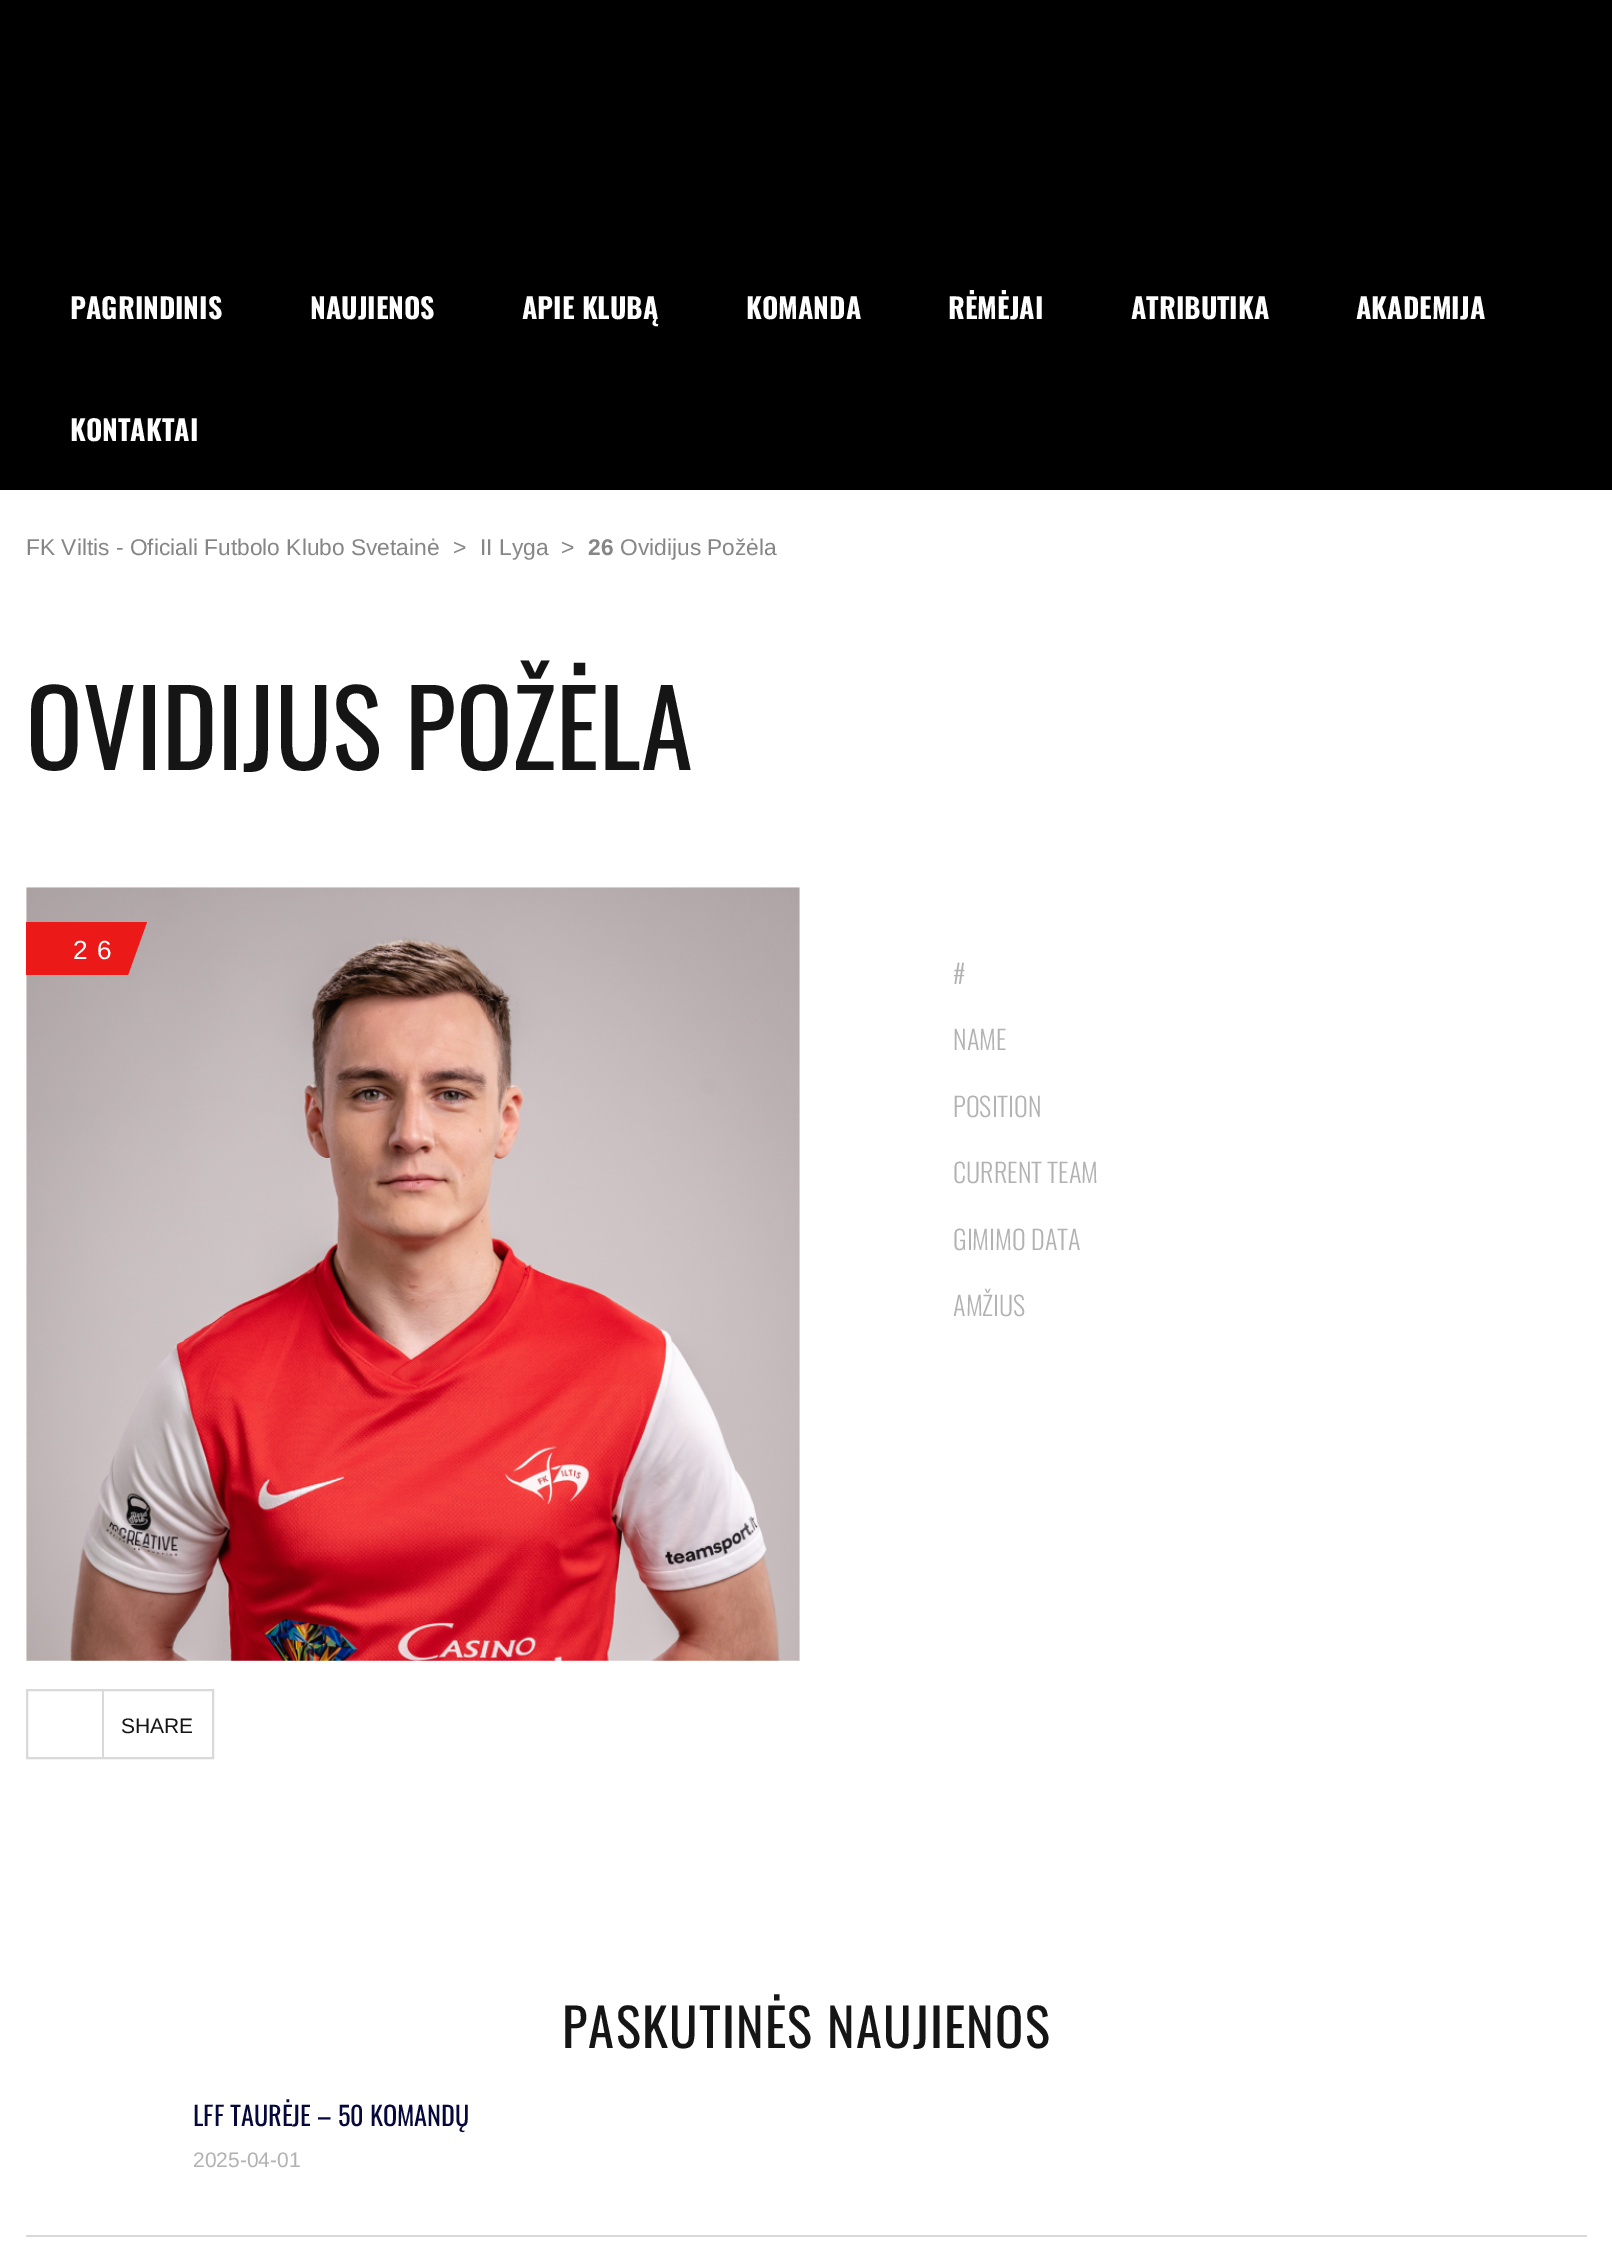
%!PS-Adobe-3.0
%%BoundingBox: 0 0 1612 2261
%%LanguageLevel: 3
%%Pages: 1
%%EndComments
%%BeginProlog
/setink { 3 { 255 div 3 1 roll } repeat setrgbcolor } def
/usefont { [ exch dup neg 0 0 3 -1 roll 0 0 ] selectfont } def
/drawtext { setink usefont moveto show } def
/fillbox { setink rectfill } def
/drawimage { 5 dict begin { /h /w /y /x /name } { exch def } forall
  gsave x y translate w h scale
  w h 8 [w 0 0 h 0 0] name (r) file false 3 colorimage grestore end } def
%%EndProlog
%%BeginSetup
<< /PageSize [1612 2261] >> setpagedevice
%%EndSetup
%%Page: 1 1
0 2261 translate 1 -1 scale
4 setmiterlimit
0 0 1612 2261 255 255 255 fillbox
0 0 1612 490 0 0 0 fillbox
(PAGRINDINIS) 70 319 /Oswald-Bold 28 255 255 255 drawtext
(NAUJIENOS) 310 319 /Oswald-Bold 28 255 255 255 drawtext
(APIE KLUBĄ) 522 319 /Oswald-Bold 28 255 255 255 drawtext
(KOMANDA) 746 319 /Oswald-Bold 28 255 255 255 drawtext
(RĖMĖJAI) 948 319 /Oswald-Bold 28 255 255 255 drawtext
(ATRIBUTIKA) 1131 319 /Oswald-Bold 28 255 255 255 drawtext
(AKADEMIJA) 1356 319 /Oswald-Bold 28 255 255 255 drawtext
(KONTAKTAI) 70 441 /Oswald-Bold 28 255 255 255 drawtext
(FK Viltis - Oficiali Futbolo Klubo Svetainė) 26 555 /LiberationSans-Regular 22.75 134 134 134 drawtext
(>) 453 555 /LiberationSans-Regular 22.75 134 134 134 drawtext
(II Lyga) 480 555 /LiberationSans-Regular 22.75 134 134 134 drawtext
(>) 561 555 /LiberationSans-Regular 22.75 134 134 134 drawtext
(26) 588 555 /LiberationSans-Bold 22.75 134 134 134 drawtext
(Ovidijus Požėla) 620 555 /LiberationSans-Regular 22.75 134 134 134 drawtext
(OVIDIJUS POŽĖLA) 26 770 /Oswald-Regular 105 21 21 21 drawtext
(assets/img1.rgb) 26 887 774 774 drawimage
26 922 102 53 236 25 25 fillbox
/LiberationSans-Regular 26.25 usefont
255 255 255 setink
73 959 moveto 9 0 (26) ashow
236 25 25 setink
128 922 moveto 147 922 lineto 128 975 lineto closepath fill
(#) 953 984 /Oswald-Light 26.25 178 178 178 drawtext
(NAME) 953 1050 /Oswald-Light 26.25 178 178 178 drawtext
(POSITION) 953 1117 /Oswald-Light 26.25 178 178 178 drawtext
(CURRENT TEAM) 953 1183 /Oswald-Light 26.25 178 178 178 drawtext
(GIMIMO DATA) 953 1250 /Oswald-Light 26.25 178 178 178 drawtext
(AMŽIUS) 953 1316 /Oswald-Light 26.25 178 178 178 drawtext
217 217 217 setink
2 setlinewidth
27 1690 186 68 rectstroke
102 1691 2 66 217 217 217 fillbox
(SHARE) 121 1733 /LiberationSans-Regular 21 21 21 21 drawtext
/Oswald-Regular 52.5 usefont
562 2048 moveto 1.25 0 (PASKUTINĖS NAUJIENOS) ashow
26 2235 1561 2 217 217 217 fillbox
(LFF TAURĖJE – 50 KOMANDŲ) 193 2126 /Oswald-Regular 26.25 6 8 59 drawtext
(2025-04-01) 193 2167 /LiberationSans-Regular 21 178 178 178 drawtext
showpage
%%EOF
